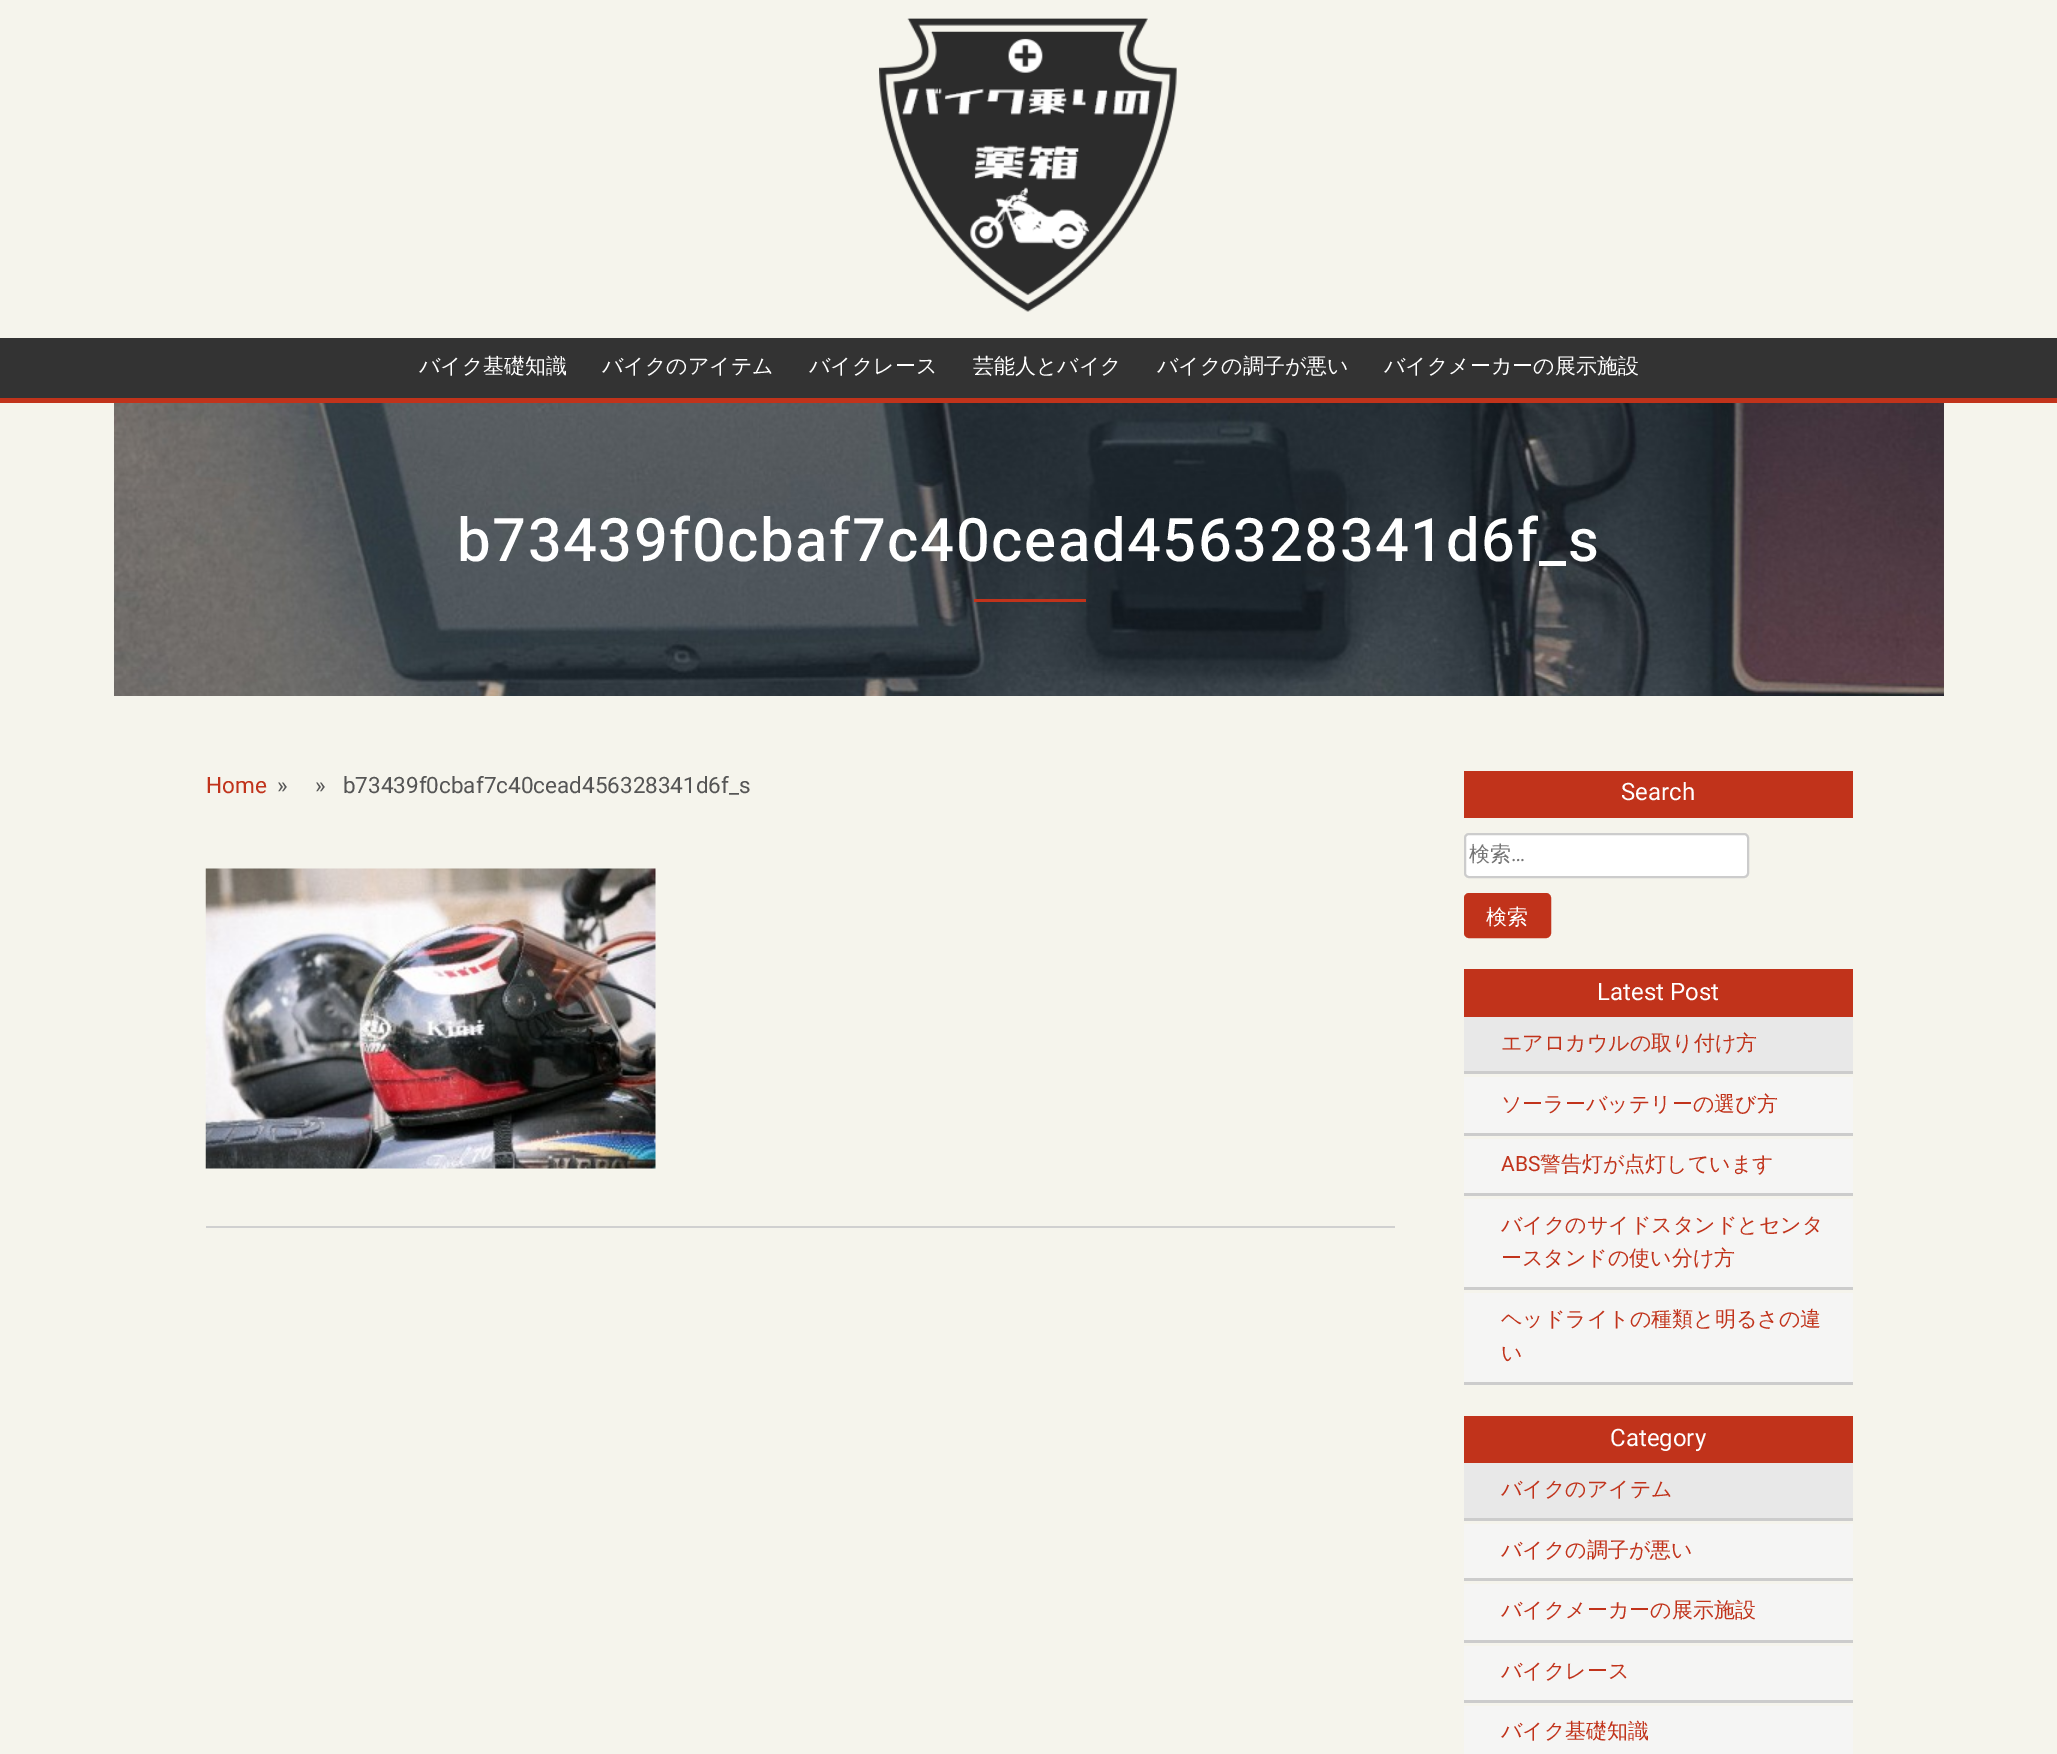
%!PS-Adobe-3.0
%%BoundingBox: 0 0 2057 1754
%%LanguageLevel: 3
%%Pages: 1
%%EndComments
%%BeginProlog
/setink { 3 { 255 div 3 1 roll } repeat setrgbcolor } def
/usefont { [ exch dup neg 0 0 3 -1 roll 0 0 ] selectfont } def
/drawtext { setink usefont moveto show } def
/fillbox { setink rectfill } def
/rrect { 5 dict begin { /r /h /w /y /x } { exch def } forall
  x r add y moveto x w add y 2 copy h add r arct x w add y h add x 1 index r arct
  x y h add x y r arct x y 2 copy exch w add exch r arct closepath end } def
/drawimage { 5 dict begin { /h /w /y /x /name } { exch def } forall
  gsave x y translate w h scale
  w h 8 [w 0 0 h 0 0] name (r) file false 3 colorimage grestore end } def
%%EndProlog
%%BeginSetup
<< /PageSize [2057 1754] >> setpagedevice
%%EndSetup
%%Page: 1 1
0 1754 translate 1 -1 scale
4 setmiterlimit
0 0 2057 1754 245 244 236 fillbox
0 398 2057 5 193 51 27 fillbox
(assets/img1.rgb) 879 18 298 294 drawimage
0 338 2057 60 51 51 51 fillbox
(バイク基礎知識) 419 373 /WenQuanYiZenHei-Medium 21 255 255 255 drawtext
(バイクのアイテム) 602 373 /WenQuanYiZenHei-Medium 21 255 255 255 drawtext
(バイクレース) 809 373 /WenQuanYiZenHei-Medium 21 255 255 255 drawtext
(芸能人とバイク) 973 373 /WenQuanYiZenHei-Medium 21 255 255 255 drawtext
(バイクの調子が悪い) 1157 373 /WenQuanYiZenHei-Medium 21 255 255 255 drawtext
(バイクメーカーの展示施設) 1384 373 /WenQuanYiZenHei-Medium 21 255 255 255 drawtext
(assets/img2.rgb) 114 403 1830 293 drawimage
/Heebo-Medium 60 usefont
457 561 moveto 1.5 0 (b73439f0cbaf7c40cead456328341d6f_s) ashow
974 599 112 3 193 51 27 fillbox
(Home) 206 793 /Heebo-Regular 22.5 193 51 27 drawtext
(»     »   b73439f0cbaf7c40cead456328341d6f_s) 277 793 /Heebo-Regular 22.5 85 85 85 drawtext
206 1226 1189 2 208 208 208 fillbox
(assets/img3.rgb) 205 868 451 301 drawimage
1464 771 389 47 193 51 27 fillbox
(Search) 1621 800 /Heebo-Regular 24 255 255 255 drawtext
1465 834 283 43 4 rrect gsave fill grestore
204 204 204 setink
2 setlinewidth
stroke
(検索) 1469 861 /WenQuanYiZenHei-Medium 21 117 117 117 drawtext
(…) 1511 861 /Heebo-Regular 21 117 117 117 drawtext
193 51 27 setink
1465 894 85 43 4 rrect gsave fill grestore
stroke
(検索) 1486 924 /WenQuanYiZenHei-Medium 21 255 255 255 drawtext
1464 969 389 48 193 51 27 fillbox
(Latest Post) 1597 1000 /Heebo-Regular 24 255 255 255 drawtext
1464 1017 389 54 232 232 232 fillbox
1464 1071 389 3 204 204 204 fillbox
(エアロカウルの取り付け方) 1501 1050 /WenQuanYiZenHei-Medium 21 193 51 27 drawtext
1464 1077 389 56 245 245 244 fillbox
1464 1133 389 3 204 204 204 fillbox
(ソーラーバッテリーの選び方) 1501 1111 /WenQuanYiZenHei-Medium 21 193 51 27 drawtext
1464 1139 389 54 245 245 244 fillbox
1464 1193 389 3 204 204 204 fillbox
(ABS) 1501 1171 /Heebo-Regular 21 193 51 27 drawtext
(警告灯が点灯しています) 1540 1171 /WenQuanYiZenHei-Medium 21 193 51 27 drawtext
1464 1199 389 88 245 245 244 fillbox
1464 1287 389 3 204 204 204 fillbox
(バイクのサイドスタンドとセンタ) 1501 1232 /WenQuanYiZenHei-Medium 21 193 51 27 drawtext
(ースタンドの使い分け方) 1501 1265 /WenQuanYiZenHei-Medium 21 193 51 27 drawtext
1464 1293 389 89 245 245 244 fillbox
1464 1382 389 3 204 204 204 fillbox
(ヘッドライトの種類と明るさの違) 1501 1326 /WenQuanYiZenHei-Medium 21 193 51 27 drawtext
(い) 1501 1360 /WenQuanYiZenHei-Medium 21 193 51 27 drawtext
1464 1416 389 47 193 51 27 fillbox
(Category) 1610 1446 /Heebo-Regular 24 255 255 255 drawtext
1464 1463 389 55 232 232 232 fillbox
1464 1518 389 3 204 204 204 fillbox
(バイクのアイテム) 1501 1496 /WenQuanYiZenHei-Medium 21 193 51 27 drawtext
1464 1524 389 54 245 245 244 fillbox
1464 1578 389 3 204 204 204 fillbox
(バイクの調子が悪い) 1501 1557 /WenQuanYiZenHei-Medium 21 193 51 27 drawtext
1464 1584 389 56 245 245 244 fillbox
1464 1640 389 3 204 204 204 fillbox
(バイクメーカーの展示施設) 1501 1617 /WenQuanYiZenHei-Medium 21 193 51 27 drawtext
1464 1646 389 54 245 245 244 fillbox
1464 1700 389 3 204 204 204 fillbox
(バイクレース) 1501 1678 /WenQuanYiZenHei-Medium 21 193 51 27 drawtext
1464 1706 389 48 245 245 244 fillbox
(バイク基礎知識) 1501 1738 /WenQuanYiZenHei-Medium 21 193 51 27 drawtext
showpage
%%EOF
